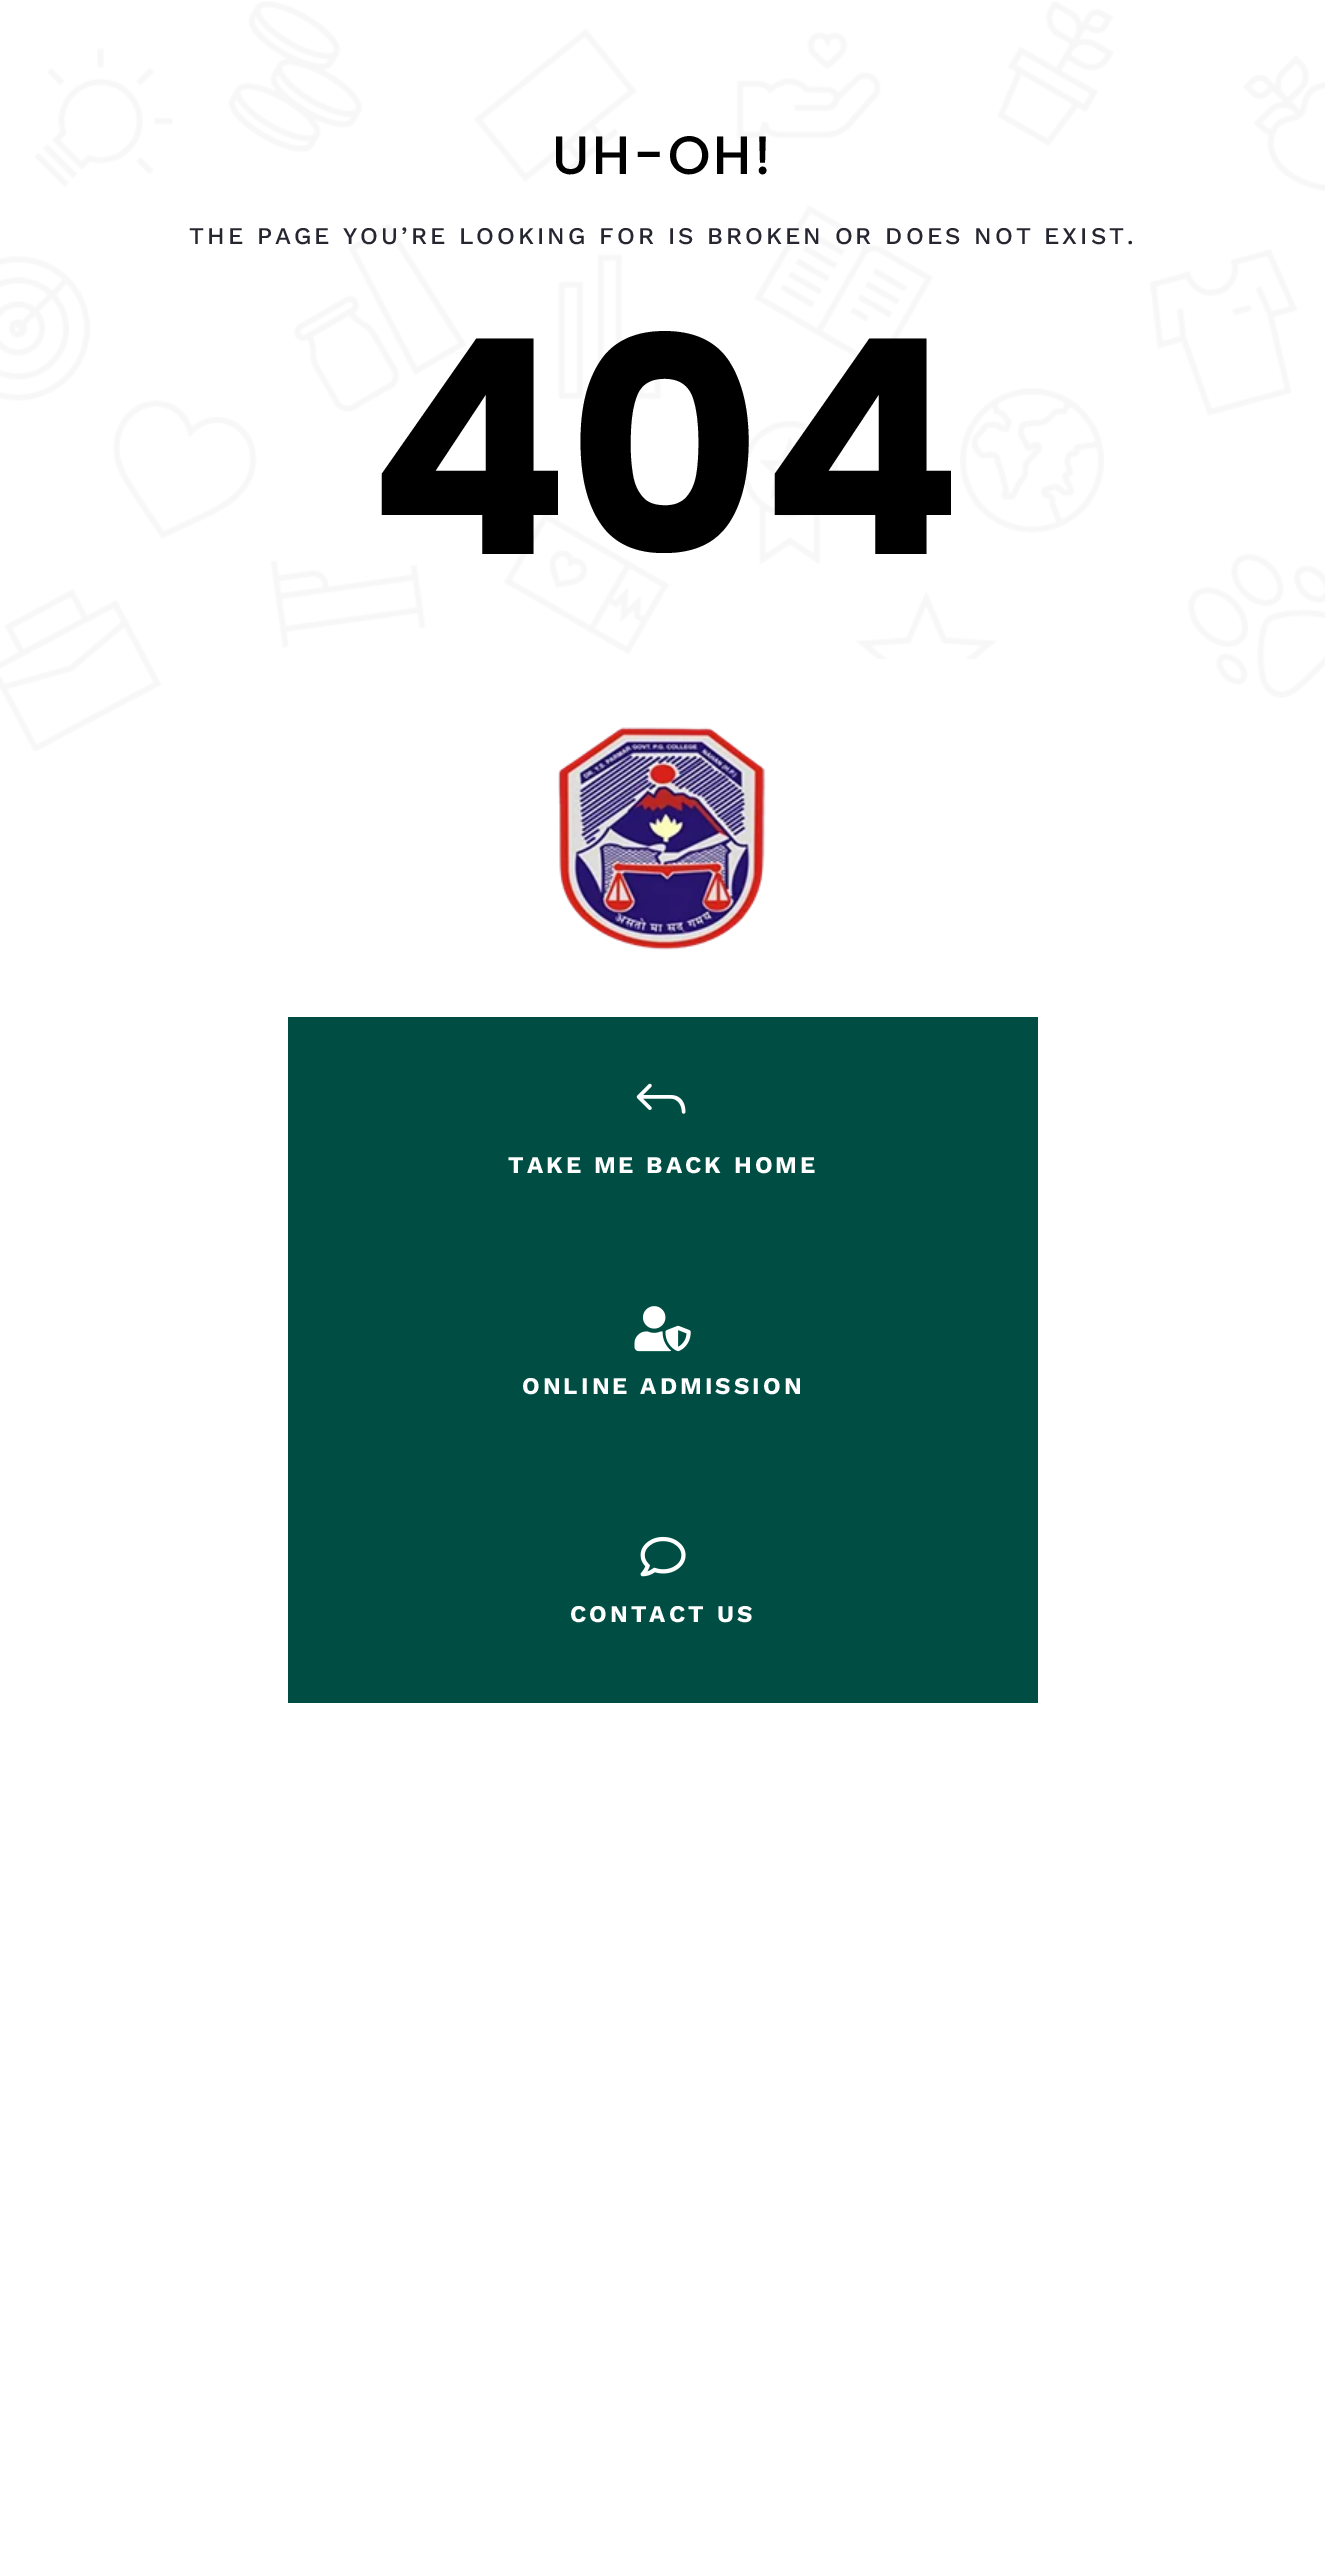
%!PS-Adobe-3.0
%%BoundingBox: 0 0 1325 2554
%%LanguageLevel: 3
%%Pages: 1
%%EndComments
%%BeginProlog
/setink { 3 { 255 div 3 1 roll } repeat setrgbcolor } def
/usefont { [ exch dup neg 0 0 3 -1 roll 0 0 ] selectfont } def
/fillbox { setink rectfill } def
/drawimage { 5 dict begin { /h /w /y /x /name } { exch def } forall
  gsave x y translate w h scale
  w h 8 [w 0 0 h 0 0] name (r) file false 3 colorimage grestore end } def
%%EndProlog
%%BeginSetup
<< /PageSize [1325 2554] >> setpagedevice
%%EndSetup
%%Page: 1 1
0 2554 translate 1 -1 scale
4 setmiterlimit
0 0 1325 2554 255 255 255 fillbox
(assets/img1.rgb) 0 1 1325 750 drawimage
/Poppins-Medium 54 usefont
0 0 0 setink
552 174 moveto 3 0 (UH-OH!) ashow
/WorkSans-Medium 24 usefont
37 38 48 setink
189 244 moveto 3 0 (THE PAGE YOU’RE LOOKING FOR IS BROKEN OR DOES NOT EXIST.) ashow
/Poppins-Bold 300 usefont
0 0 0 setink
367 554 moveto -3 0 (404) ashow
427 659 548 92 255 255 255 fillbox
(assets/img2.rgb) 558 727 208 223 drawimage
288 1017 750 686 0 78 67 fillbox
(assets/img3.rgb) 636 1083 50 31 drawimage
/WorkSans-Bold 24 usefont
255 255 255 setink
508 1173 moveto 3 0 (TAKE ME BACK HOME) ashow
(assets/img4.rgb) 634 1306 57 46 drawimage
522 1394 moveto 3 0 (ONLINE ADMISSION) ashow
(assets/img5.rgb) 640 1536 46 41 drawimage
570 1622 moveto 3 0 (CONTACT US) ashow
showpage
%%EOF
